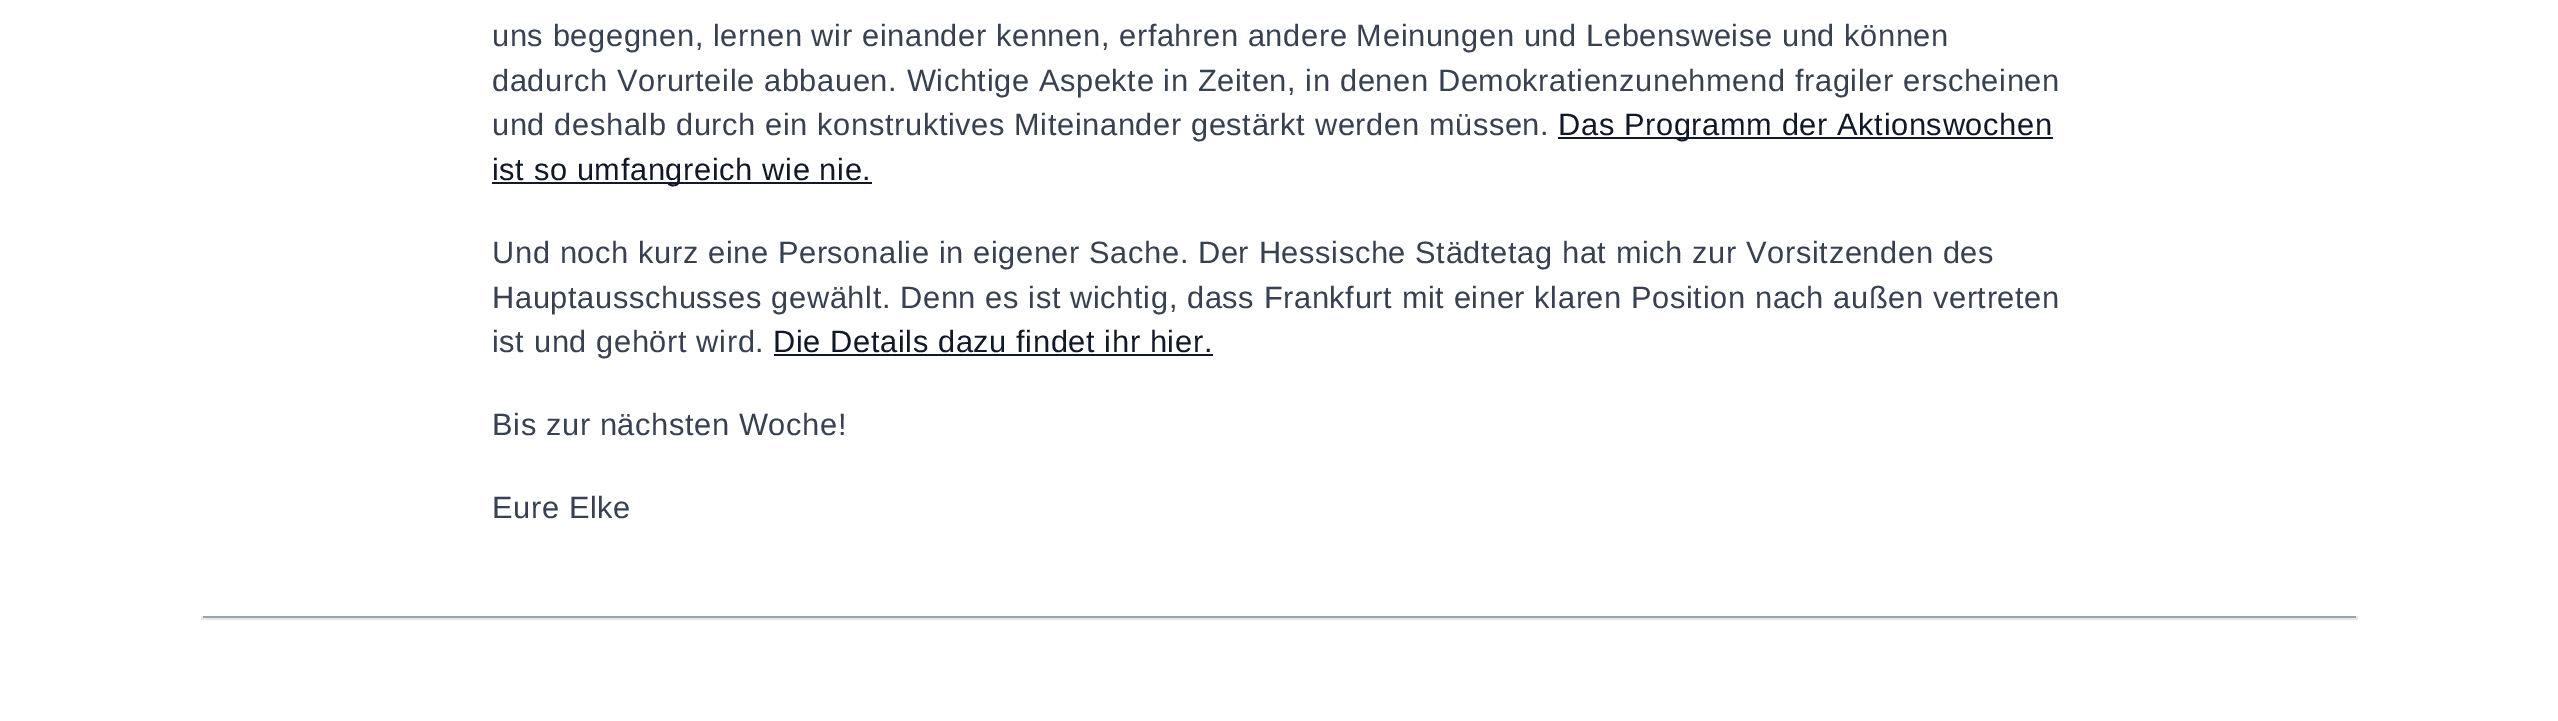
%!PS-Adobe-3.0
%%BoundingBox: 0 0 2558 721
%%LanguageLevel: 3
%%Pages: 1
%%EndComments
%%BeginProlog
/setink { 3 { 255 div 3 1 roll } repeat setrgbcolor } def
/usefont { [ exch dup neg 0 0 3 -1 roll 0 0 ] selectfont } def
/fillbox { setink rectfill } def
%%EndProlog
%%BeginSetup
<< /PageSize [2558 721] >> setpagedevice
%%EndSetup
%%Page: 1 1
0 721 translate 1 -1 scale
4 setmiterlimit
0 0 2558 721 255 255 255 fillbox
/LiberationSans-Regular 30.8 usefont
55 65 81 setink
492 46 moveto 0.62 0 (uns begegnen, lernen wir einander kennen, erfahren andere Meinungen und Lebensweise und können) ashow
492 91 moveto 0.62 0 (dadurch Vorurteile abbauen. Wichtige Aspekte in Zeiten, in denen Demokratienzunehmend fragiler erscheinen) ashow
492 135 moveto 0.62 0 (und deshalb durch ein konstruktives Miteinander gestärkt werden müssen.) ashow
1558 137 495 2 17 24 39 fillbox
1558 135 moveto 0.62 0 (Das Programm der Aktionswochen) ashow
492 182 380 2 17 24 39 fillbox
492 180 moveto 0.62 0 (ist so umfangreich wie nie.) ashow
55 65 81 setink
492 263 moveto 0.62 0 (Und noch kurz eine Personalie in eigener Sache. Der Hessische Städtetag hat mich zur Vorsitzenden des) ashow
492 308 moveto 0.62 0 (Hauptausschusses gewählt. Denn es ist wichtig, dass Frankfurt mit einer klaren Position nach außen vertreten) ashow
492 352 moveto 0.62 0 (ist und gehört wird.) ashow
17 24 39 setink
773 352 moveto 0.62 0 (Die Details dazu findet ihr hier.) ashow
774 354 439 2 17 24 39 fillbox
55 65 81 setink
492 435 moveto 0.62 0 (Bis zur nächsten Woche!) ashow
492 518 moveto 0.62 0 (Eure Elke) ashow
201 616 2156 2 156 163 175 fillbox
2356 616 2 4 229 231 235 fillbox
201 618 2156 2 229 231 235 fillbox
201 616 2 4 229 231 235 fillbox
showpage
%%EOF
